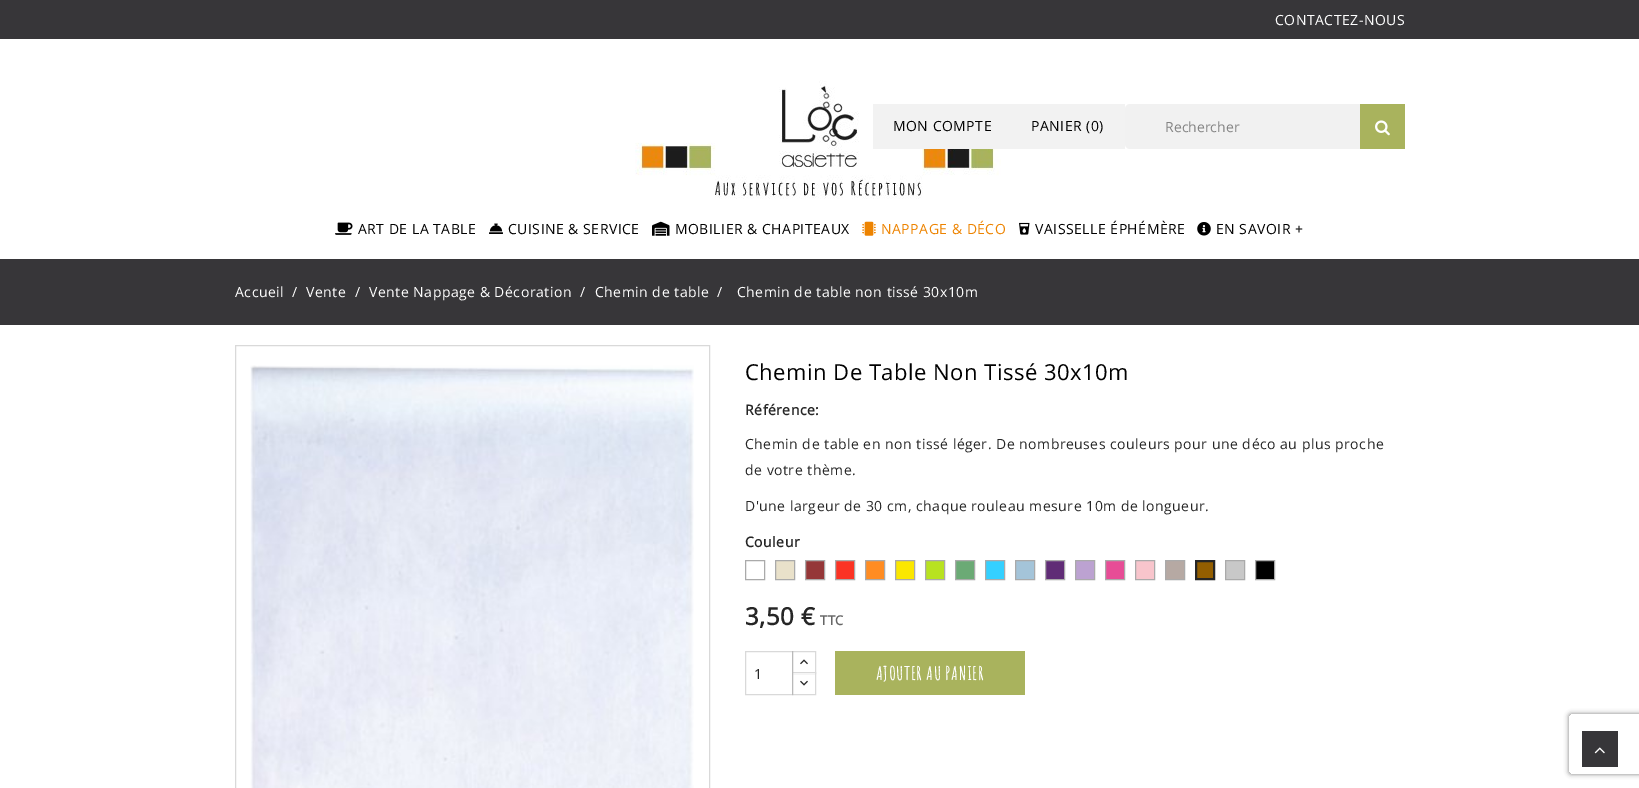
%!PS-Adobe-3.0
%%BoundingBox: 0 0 1639 788
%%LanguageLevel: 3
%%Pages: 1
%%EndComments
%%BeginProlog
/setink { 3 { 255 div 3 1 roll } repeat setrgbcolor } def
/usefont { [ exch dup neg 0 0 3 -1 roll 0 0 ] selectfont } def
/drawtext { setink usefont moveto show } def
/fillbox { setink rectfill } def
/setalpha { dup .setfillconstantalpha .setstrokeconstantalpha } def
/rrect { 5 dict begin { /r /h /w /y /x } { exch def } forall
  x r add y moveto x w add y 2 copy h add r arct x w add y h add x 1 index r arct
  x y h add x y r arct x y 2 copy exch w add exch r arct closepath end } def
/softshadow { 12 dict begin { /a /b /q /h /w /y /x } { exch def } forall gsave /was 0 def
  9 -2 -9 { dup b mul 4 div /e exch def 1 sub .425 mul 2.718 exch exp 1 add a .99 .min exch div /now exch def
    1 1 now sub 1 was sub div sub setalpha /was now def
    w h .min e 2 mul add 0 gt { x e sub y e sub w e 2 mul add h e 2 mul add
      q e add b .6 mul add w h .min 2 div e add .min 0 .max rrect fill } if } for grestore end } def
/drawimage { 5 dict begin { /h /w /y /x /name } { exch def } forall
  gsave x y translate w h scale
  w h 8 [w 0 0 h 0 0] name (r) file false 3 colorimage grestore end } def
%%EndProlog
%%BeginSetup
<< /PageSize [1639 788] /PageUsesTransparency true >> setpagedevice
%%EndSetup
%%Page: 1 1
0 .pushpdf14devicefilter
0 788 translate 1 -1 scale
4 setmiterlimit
0 0 1639 788 255 255 255 fillbox
0 0 1639 39 55 54 57 fillbox
/OpenSans-Regular 14 usefont
255 255 255 setink
1275 25 moveto 0.5 0 (CONTACTEZ-NOUS) ashow
(assets/img1.rgb) 635 80 366 119 drawimage
873 104 252 45 242 242 242 fillbox
0 0 0 setink
893 131 moveto 0.5 0 (MON COMPTE) ashow
1031 131 moveto 0.5 0 (PANIER \(0\)) ashow
241 241 241 setink
1125 104 280 45 5 rrect fill
(Rechercher) 1165 132 /OpenSans-Regular 14 131 131 131 drawtext
1360 104 45 45 169 179 93 fillbox
(assets/img2.rgb) 1375 120 15 16 drawimage
(assets/img3.rgb) 335 222 18 13 drawimage
0 0 0 setink
358 234 moveto 0.5 0 (ART DE LA TABLE) ashow
(assets/img4.rgb) 489 223 14 11 drawimage
508 234 moveto 0.5 0 (CUISINE & SERVICE) ashow
(assets/img5.rgb) 652 221 18 15 drawimage
675 234 moveto 0.5 0 (MOBILIER & CHAPITEAUX) ashow
(assets/img6.rgb) 862 221 14 15 drawimage
237 131 0 setink
881 234 moveto 0.5 0 (NAPPAGE & DÉCO) ashow
(assets/img7.rgb) 1019 222 11 13 drawimage
0 0 0 setink
1035 234 moveto 0.5 0 (VAISSELLE ÉPHÉMÈRE) ashow
(assets/img8.rgb) 1197 222 14 14 drawimage
1216 234 moveto 0.5 0 (EN SAVOIR +) ashow
0 259 1639 66 55 54 57 fillbox
255 255 255 setink
235 297 moveto 0.5 0 (Accueil) ashow
292 297 moveto 0.5 0 (/) ashow
306 297 moveto 0.5 0 (Vente) ashow
355 297 moveto 0.5 0 (/) ashow
369 297 moveto 0.5 0 (Vente Nappage & Décoration) ashow
580 297 moveto 0.5 0 (/) ashow
595 297 moveto 0.5 0 (Chemin de table) ashow
717 297 moveto 0.5 0 (/) ashow
737 297 moveto 0.5 0 (Chemin de table non tissé 30x10m) ashow
217 217 217 setink
235.5 345.5 474 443 rectstroke
(assets/img9.rgb) 250 365 444 423 drawimage
/OpenSans-Regular 22 usefont
0 0 0 setink
745 380 moveto 0.5 0 (Chemin De Table Non Tissé 30x10m) ashow
/OpenSans-Bold 14 usefont
38 38 38 setink
745 415 moveto 0.5 0 (Référence:) ashow
/OpenSans-Regular 14 usefont
745 449 moveto 0.5 0 (Chemin de table en non tissé léger. De nombreuses couleurs pour une déco au plus proche) ashow
745 475 moveto 0.5 0 (de votre thème.) ashow
745 511 moveto 0.5 0 (D'une largeur de 30 cm, chaque rouleau mesure 10m de longueur.) ashow
/OpenSans-Bold 14 usefont
745 547 moveto 0.5 0 (Couleur) ashow
170 170 170 setink
745.5 560.5 19 19 rectstroke
233 225 202 setink
775.5 560.5 moveto 794.5 560.5 lineto 794.5 579.5 lineto 775.5 579.5 lineto closepath gsave fill grestore
170 170 170 setink
stroke
149 55 56 setink
805.5 560.5 moveto 824.5 560.5 lineto 824.5 579.5 lineto 805.5 579.5 lineto closepath gsave fill grestore
170 170 170 setink
stroke
251 51 36 setink
835.5 560.5 moveto 854.5 560.5 lineto 854.5 579.5 lineto 835.5 579.5 lineto closepath gsave fill grestore
170 170 170 setink
stroke
255 140 34 setink
865.5 560.5 moveto 884.5 560.5 lineto 884.5 579.5 lineto 865.5 579.5 lineto closepath gsave fill grestore
170 170 170 setink
stroke
251 231 0 setink
895.5 560.5 moveto 914.5 560.5 lineto 914.5 579.5 lineto 895.5 579.5 lineto closepath gsave fill grestore
170 170 170 setink
stroke
184 226 32 setink
925.5 560.5 moveto 944.5 560.5 lineto 944.5 579.5 lineto 925.5 579.5 lineto closepath gsave fill grestore
170 170 170 setink
stroke
107 170 117 setink
955.5 560.5 moveto 974.5 560.5 lineto 974.5 579.5 lineto 955.5 579.5 lineto closepath gsave fill grestore
170 170 170 setink
stroke
52 208 255 setink
985.5 560.5 moveto 1004.5 560.5 lineto 1004.5 579.5 lineto 985.5 579.5 lineto closepath gsave fill grestore
170 170 170 setink
stroke
164 196 217 setink
1015.5 560.5 moveto 1034.5 560.5 lineto 1034.5 579.5 lineto 1015.5 579.5 lineto closepath gsave fill grestore
170 170 170 setink
stroke
96 44 118 setink
1045.5 560.5 moveto 1064.5 560.5 lineto 1064.5 579.5 lineto 1045.5 579.5 lineto closepath gsave fill grestore
170 170 170 setink
stroke
188 162 209 setink
1075.5 560.5 moveto 1094.5 560.5 lineto 1094.5 579.5 lineto 1075.5 579.5 lineto closepath gsave fill grestore
170 170 170 setink
stroke
231 77 150 setink
1105.5 560.5 moveto 1124.5 560.5 lineto 1124.5 579.5 lineto 1105.5 579.5 lineto closepath gsave fill grestore
170 170 170 setink
stroke
248 197 204 setink
1135.5 560.5 moveto 1154.5 560.5 lineto 1154.5 579.5 lineto 1135.5 579.5 lineto closepath gsave fill grestore
170 170 170 setink
stroke
182 169 163 setink
1165.5 560.5 moveto 1184.5 560.5 lineto 1184.5 579.5 lineto 1165.5 579.5 lineto closepath gsave fill grestore
170 170 170 setink
stroke
147 94 0 setink
1196 561 moveto 1214 561 lineto 1214 579 lineto 1196 579 lineto closepath gsave fill grestore
38 38 38 setink
2 setlinewidth
stroke
200 200 200 setink
1225.5 560.5 moveto 1244.5 560.5 lineto 1244.5 579.5 lineto 1225.5 579.5 lineto closepath gsave fill grestore
170 170 170 setink
1 setlinewidth
stroke
0 0 0 setink
1255.5 560.5 moveto 1274.5 560.5 lineto 1274.5 579.5 lineto 1255.5 579.5 lineto closepath gsave fill grestore
170 170 170 setink
stroke
/OpenSans-Bold 24 usefont
38 38 38 setink
745 625 moveto 0.5 0 (3,50 €) ashow
/OpenSans-Bold 13 usefont
102 102 102 setink
820 625 moveto 0.5 0 (TTC) ashow
217 217 217 setink
792.5 651.5 23 22 rectstroke
793 673 22 1 255 255 255 fillbox
217 217 217 setink
792.5 672.5 23 22 rectstroke
0.15 setalpha
0 0 0 setink
745.5 651.5 47 43 rectstroke
1 setalpha
(1) 754 679 /OpenSans-Regular 14 38 38 38 drawtext
(assets/img10.rgb) 800 659 8 6 drawimage
(assets/img11.rgb) 800 680 8 6 drawimage
835 651 190 44 169 179 93 fillbox
/AmaticSC-Bold 18 usefont
255 255 255 setink
876 680 moveto 1 0 (AJOUTER AU PANIER) ashow
gsave
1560 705 moveto 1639 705 lineto 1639 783 lineto 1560 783 lineto closepath 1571 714 moveto 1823 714 lineto 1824 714 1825 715 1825 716 curveto 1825 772 lineto 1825 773 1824 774 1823 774 curveto 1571 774 lineto 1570 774 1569 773 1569 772 curveto 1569 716 lineto 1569 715 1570 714 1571 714 curveto closepath eoclip newpath
128 128 128 setink
1569 714 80 60 2 2.5 1 softshadow
grestore
1582 731 36 36 55 54 57 fillbox
(assets/img12.rgb) 1594 747 11 7 drawimage
.poppdf14devicefilter showpage
%%EOF
